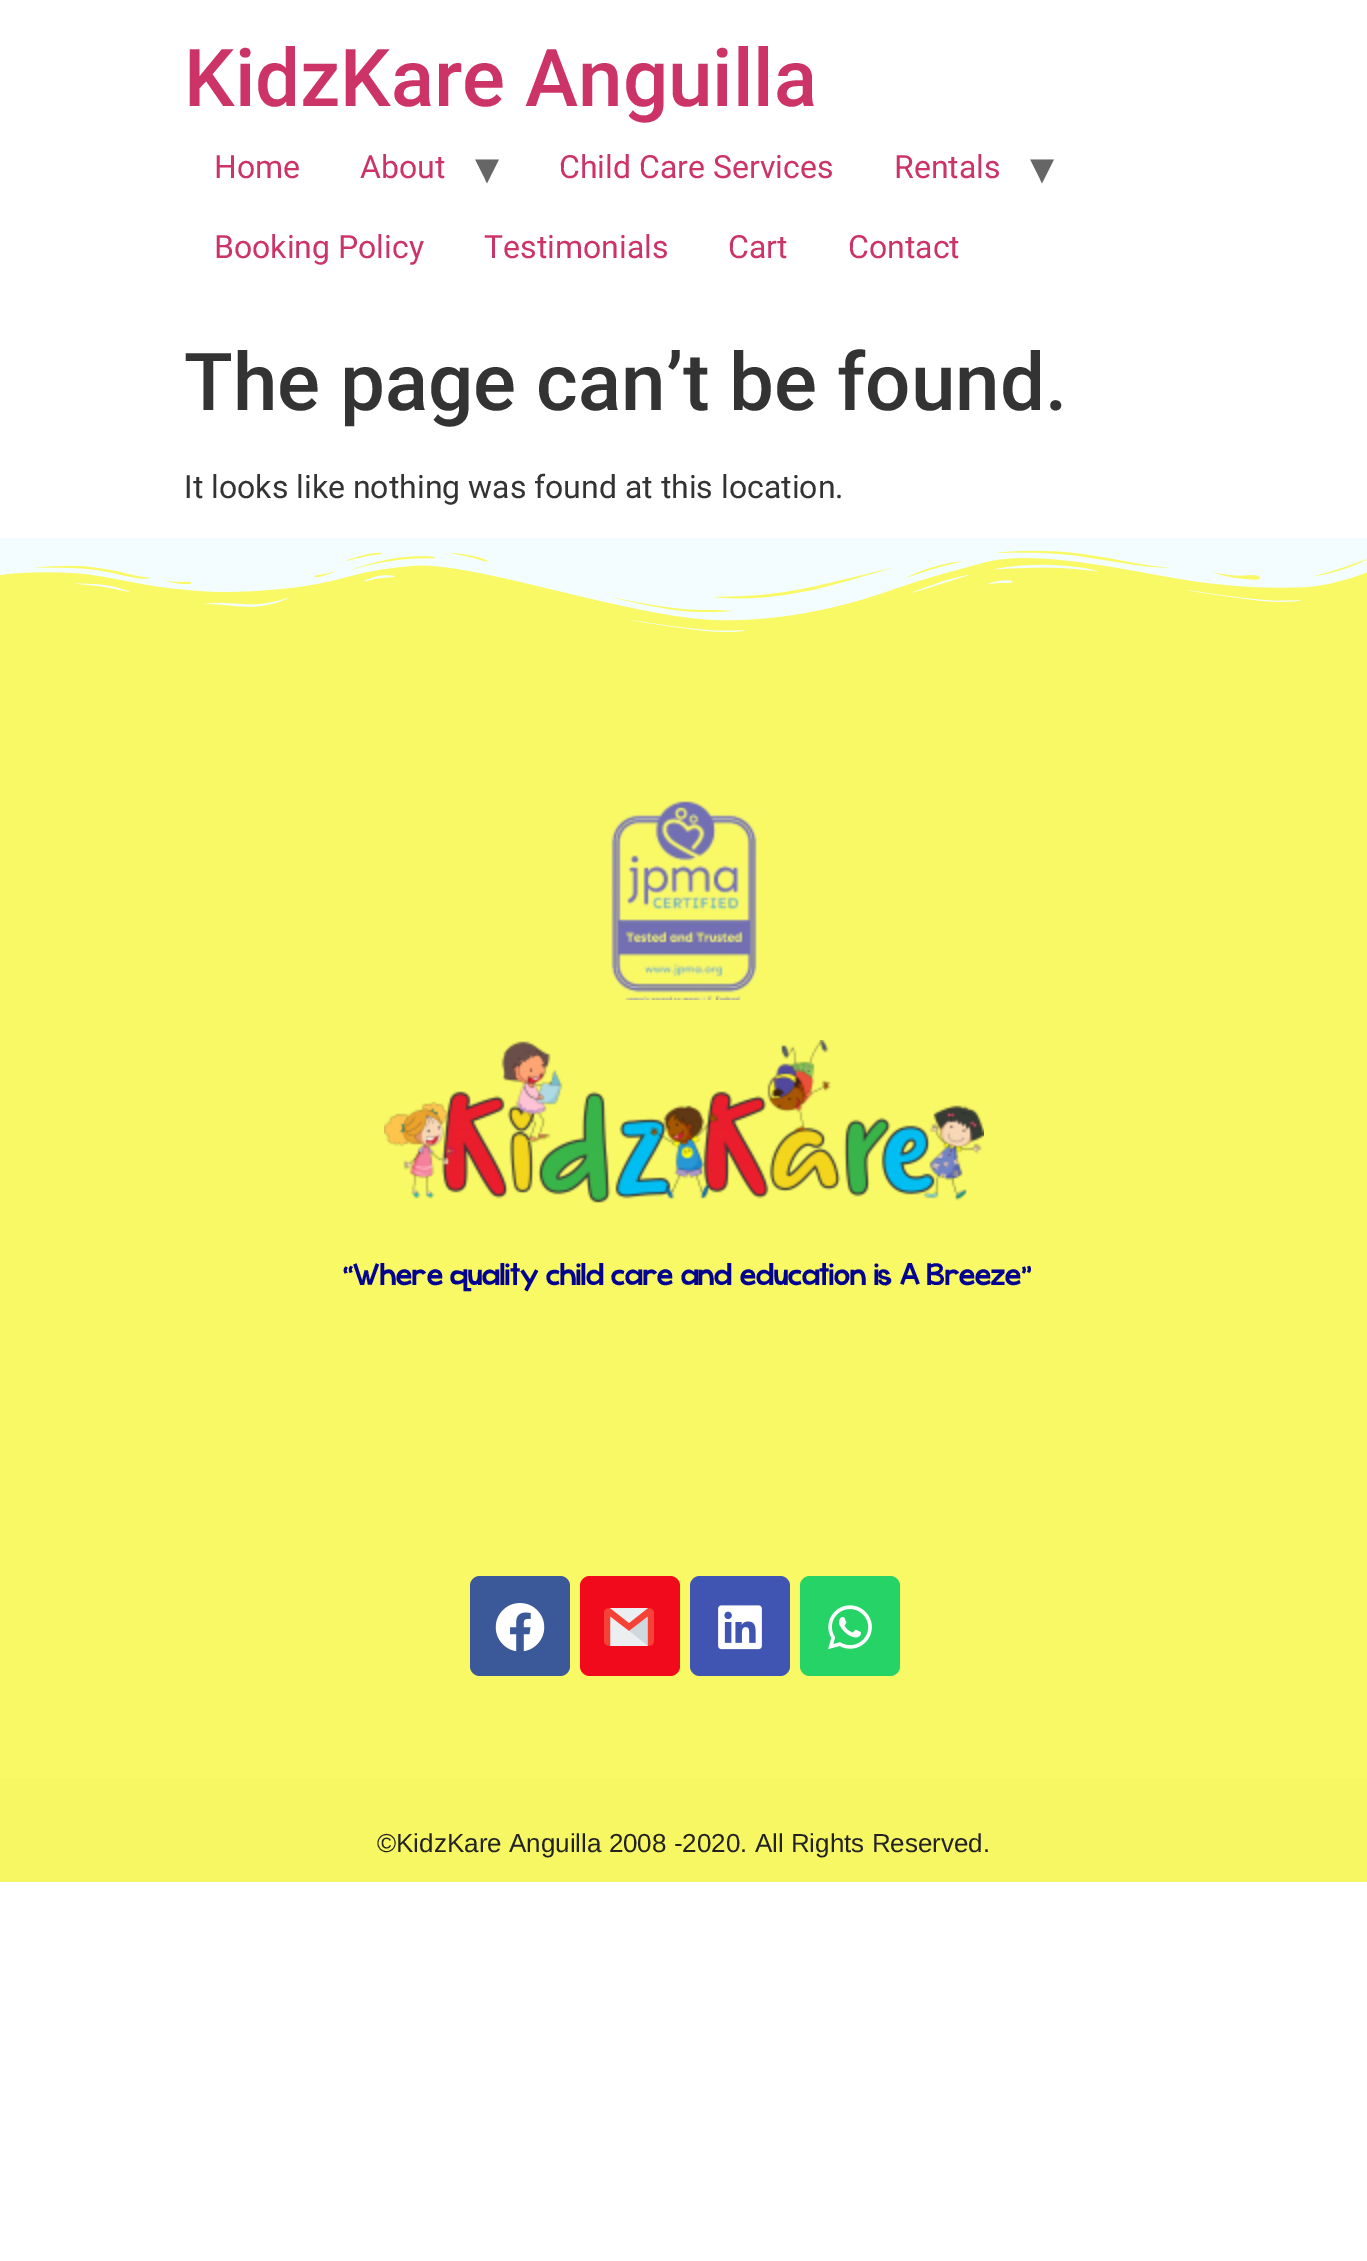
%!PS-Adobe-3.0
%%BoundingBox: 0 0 1367 2261
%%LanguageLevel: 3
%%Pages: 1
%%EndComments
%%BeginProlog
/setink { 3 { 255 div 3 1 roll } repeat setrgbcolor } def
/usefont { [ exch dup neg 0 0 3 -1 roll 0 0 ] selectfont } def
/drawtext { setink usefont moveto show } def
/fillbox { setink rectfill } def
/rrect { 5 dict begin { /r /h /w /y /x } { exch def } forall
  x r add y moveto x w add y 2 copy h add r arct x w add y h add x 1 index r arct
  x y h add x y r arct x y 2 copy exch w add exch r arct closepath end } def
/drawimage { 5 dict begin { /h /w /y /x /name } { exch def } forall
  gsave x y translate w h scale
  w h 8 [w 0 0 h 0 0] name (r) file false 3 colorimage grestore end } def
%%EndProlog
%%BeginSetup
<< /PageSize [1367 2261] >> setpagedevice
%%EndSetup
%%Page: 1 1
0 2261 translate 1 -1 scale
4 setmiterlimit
0 0 1367 2261 255 255 255 fillbox
(KidzKare Anguilla) 184 106 /Roboto-Medium 80 204 51 102 drawtext
(Home) 214 178 /Roboto-Regular 32 204 51 102 drawtext
(About) 360 178 /Roboto-Regular 32 204 51 102 drawtext
(▾) 475 184 /DejaVuSans-Regular 48 102 102 102 drawtext
(Child Care Services) 559 178 /Roboto-Regular 32 204 51 102 drawtext
(Rentals) 894 178 /Roboto-Regular 32 204 51 102 drawtext
(▾) 1030 184 /DejaVuSans-Regular 48 102 102 102 drawtext
(Booking Policy) 214 258 /Roboto-Regular 32 204 51 102 drawtext
(Testimonials) 484 258 /Roboto-Regular 32 204 51 102 drawtext
(Cart) 728 258 /Roboto-Regular 32 204 51 102 drawtext
(Contact) 848 258 /Roboto-Regular 32 204 51 102 drawtext
(The page can’t be found.) 184 410 /Roboto-Medium 80 51 51 51 drawtext
(It looks like nothing was found at this location.) 184 498 /Roboto-Regular 32 51 51 51 drawtext
0 550 1367 1228 249 249 101 fillbox
(assets/img1.rgb) 0 538 1367 94 drawimage
(assets/img2.rgb) 611 800 146 200 drawimage
(assets/img3.rgb) 384 1040 600 163 drawimage
(“Where quality child care and education is A Breeze”) 343 1285 /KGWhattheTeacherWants-Regular 32 4 3 143 drawtext
59 89 152 setink
470 1576 100 100 10 rrect fill
(assets/img4.rgb) 495 1603 50 49 drawimage
241 10 27 setink
580 1576 100 100 10 rrect fill
(assets/img5.rgb) 604 1608 50 38 drawimage
64 84 178 setink
690 1576 100 100 10 rrect fill
(assets/img6.rgb) 718 1605 44 45 drawimage
37 211 102 setink
800 1576 100 100 10 rrect fill
(assets/img7.rgb) 828 1605 44 45 drawimage
0 1778 1367 104 247 247 100 fillbox
(©KidzKare Anguilla 2008 -2020. All Rights Reserved.) 377 1852 /LiberationSans-Regular 26 34 34 34 drawtext
showpage
%%EOF
